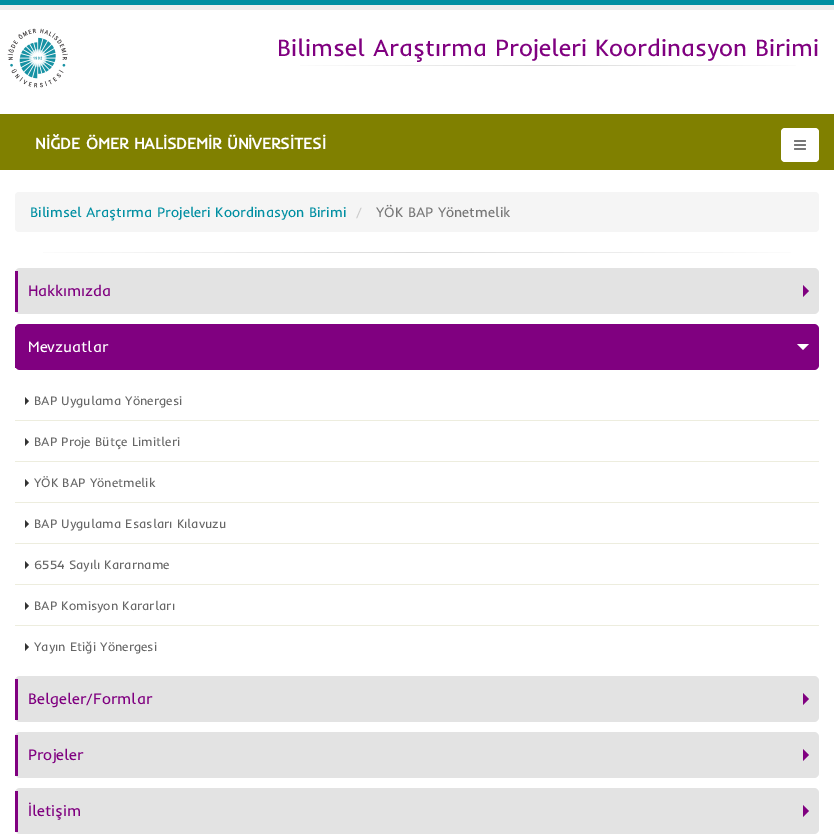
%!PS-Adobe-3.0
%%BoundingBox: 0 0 834 838
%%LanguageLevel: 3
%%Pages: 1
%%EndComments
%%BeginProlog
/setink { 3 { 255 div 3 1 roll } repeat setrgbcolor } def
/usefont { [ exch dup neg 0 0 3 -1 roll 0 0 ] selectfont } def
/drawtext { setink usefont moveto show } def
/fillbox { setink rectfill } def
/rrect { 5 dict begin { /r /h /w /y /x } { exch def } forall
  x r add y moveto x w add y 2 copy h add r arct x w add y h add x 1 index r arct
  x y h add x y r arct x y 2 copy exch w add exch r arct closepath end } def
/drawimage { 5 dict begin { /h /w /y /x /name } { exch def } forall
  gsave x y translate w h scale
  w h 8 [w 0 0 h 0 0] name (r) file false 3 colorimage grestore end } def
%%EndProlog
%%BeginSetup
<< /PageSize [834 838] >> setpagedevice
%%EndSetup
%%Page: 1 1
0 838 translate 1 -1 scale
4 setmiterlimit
0 0 834 838 255 255 255 fillbox
0 0 834 5 0 143 162 fillbox
0 5 834 5 237 237 237 fillbox
(assets/img1.rgb) 7 28 61 60 drawimage
(Bilimsel Araştırma Projeleri Koordinasyon Birimi) 277 56 /Inder-Regular 24 128 0 128 drawtext
gsave 300 65 moveto 796 65 lineto 796 66 lineto 300 66 lineto closepath clip newpath
<< /ShadingType 2 /ColorSpace /DeviceRGB /Coords [281 66 815 65] /Extend [true true] /Function << /FunctionType 3 /Domain [0 1] /Functions [<< /FunctionType 2 /Domain [0 1] /C0 [1 1 1] /C1 [0.859 0.859 0.859] /N 1 >> << /FunctionType 2 /Domain [0 1] /C0 [0.859 0.859 0.859] /C1 [1 1 1] /N 1 >>] /Bounds [0.5] /Encode [0 1 0 1] >> >> shfill grestore
0 114 834 56 128 128 0 fillbox
(NİĞDE ÖMER HALİSDEMİR ÜNİVERSİTESİ) 35 149 /Inder-Bold 16 255 255 255 drawtext
781 128 38 34 4 rrect fill
(assets/img2.rgb) 794 140 12 10 drawimage
245 245 245 setink
15 192 804 40 4 rrect fill
(Bilimsel Araştırma Projeleri Koordinasyon Birimi) 30 217 /Inder-Regular 14 0 143 162 drawtext
(/) 356 217 /Inder-Regular 14 204 204 204 drawtext
(YÖK BAP Yönetmelik) 376 217 /Inder-Regular 14 119 119 119 drawtext
gsave 43 252 moveto 791 252 lineto 791 253 lineto 43 253 lineto closepath clip newpath
<< /ShadingType 2 /ColorSpace /DeviceRGB /Coords [15 253 819 252] /Extend [true true] /Function << /FunctionType 3 /Domain [0 1] /Functions [<< /FunctionType 2 /Domain [0 1] /C0 [1 1 1] /C1 [0.859 0.859 0.859] /N 1 >> << /FunctionType 2 /Domain [0 1] /C0 [0.859 0.859 0.859] /C1 [1 1 1] /N 1 >>] /Bounds [0.5] /Encode [0 1 0 1] >> >> shfill grestore
227 227 227 setink
15 268 804 46 5 rrect fill
15 271 3 41 128 0 128 fillbox
(Hakkımızda) 28 296 /Inder-Regular 15.5 128 0 128 drawtext
803 297 moveto 803 285 lineto 809 291 lineto closepath fill
15 324 804 46 5 rrect fill
15 327 1 41 128 0 128 fillbox
(Mevzuatlar) 28 352 /Inder-Regular 15.5 255 255 255 drawtext
797 344 moveto 809 344 lineto 803 350 lineto closepath fill
15 420 804 1 237 237 222 fillbox
51 51 51 setink
25 405 moveto 25 397 lineto 29 401 lineto closepath fill
(BAP Uygulama Yönergesi) 34 405 /Inder-Regular 12.6 102 102 102 drawtext
15 461 804 1 237 237 222 fillbox
51 51 51 setink
25 446 moveto 25 438 lineto 29 442 lineto closepath fill
(BAP Proje Bütçe Limitleri) 34 446 /Inder-Regular 12.6 102 102 102 drawtext
15 502 804 1 237 237 222 fillbox
51 51 51 setink
25 487 moveto 25 479 lineto 29 483 lineto closepath fill
(YÖK BAP Yönetmelik) 34 487 /Inder-Regular 12.6 102 102 102 drawtext
15 543 804 1 237 237 222 fillbox
51 51 51 setink
25 528 moveto 25 520 lineto 29 524 lineto closepath fill
(BAP Uygulama Esasları Kılavuzu) 34 528 /Inder-Regular 12.6 102 102 102 drawtext
15 584 804 1 237 237 222 fillbox
51 51 51 setink
25 569 moveto 25 561 lineto 29 565 lineto closepath fill
(6554 Sayılı Kararname) 34 569 /Inder-Regular 12.6 102 102 102 drawtext
15 625 804 1 237 237 222 fillbox
51 51 51 setink
25 610 moveto 25 602 lineto 29 606 lineto closepath fill
(BAP Komisyon Kararları) 34 610 /Inder-Regular 12.6 102 102 102 drawtext
51 51 51 setink
25 651 moveto 25 643 lineto 29 647 lineto closepath fill
(Yayın Etiği Yönergesi) 34 651 /Inder-Regular 12.6 102 102 102 drawtext
227 227 227 setink
15 676 804 46 5 rrect fill
15 679 3 41 128 0 128 fillbox
(Belgeler/Formlar) 28 704 /Inder-Regular 15.5 128 0 128 drawtext
803 705 moveto 803 693 lineto 809 699 lineto closepath fill
227 227 227 setink
15 732 804 46 5 rrect fill
15 735 3 41 128 0 128 fillbox
(Projeler) 28 760 /Inder-Regular 15.5 128 0 128 drawtext
803 761 moveto 803 749 lineto 809 755 lineto closepath fill
227 227 227 setink
15 788 804 46 5 rrect fill
15 791 3 41 128 0 128 fillbox
(İletişim) 28 816 /Inder-Regular 15.5 128 0 128 drawtext
803 817 moveto 803 805 lineto 809 811 lineto closepath fill
showpage
%%EOF
